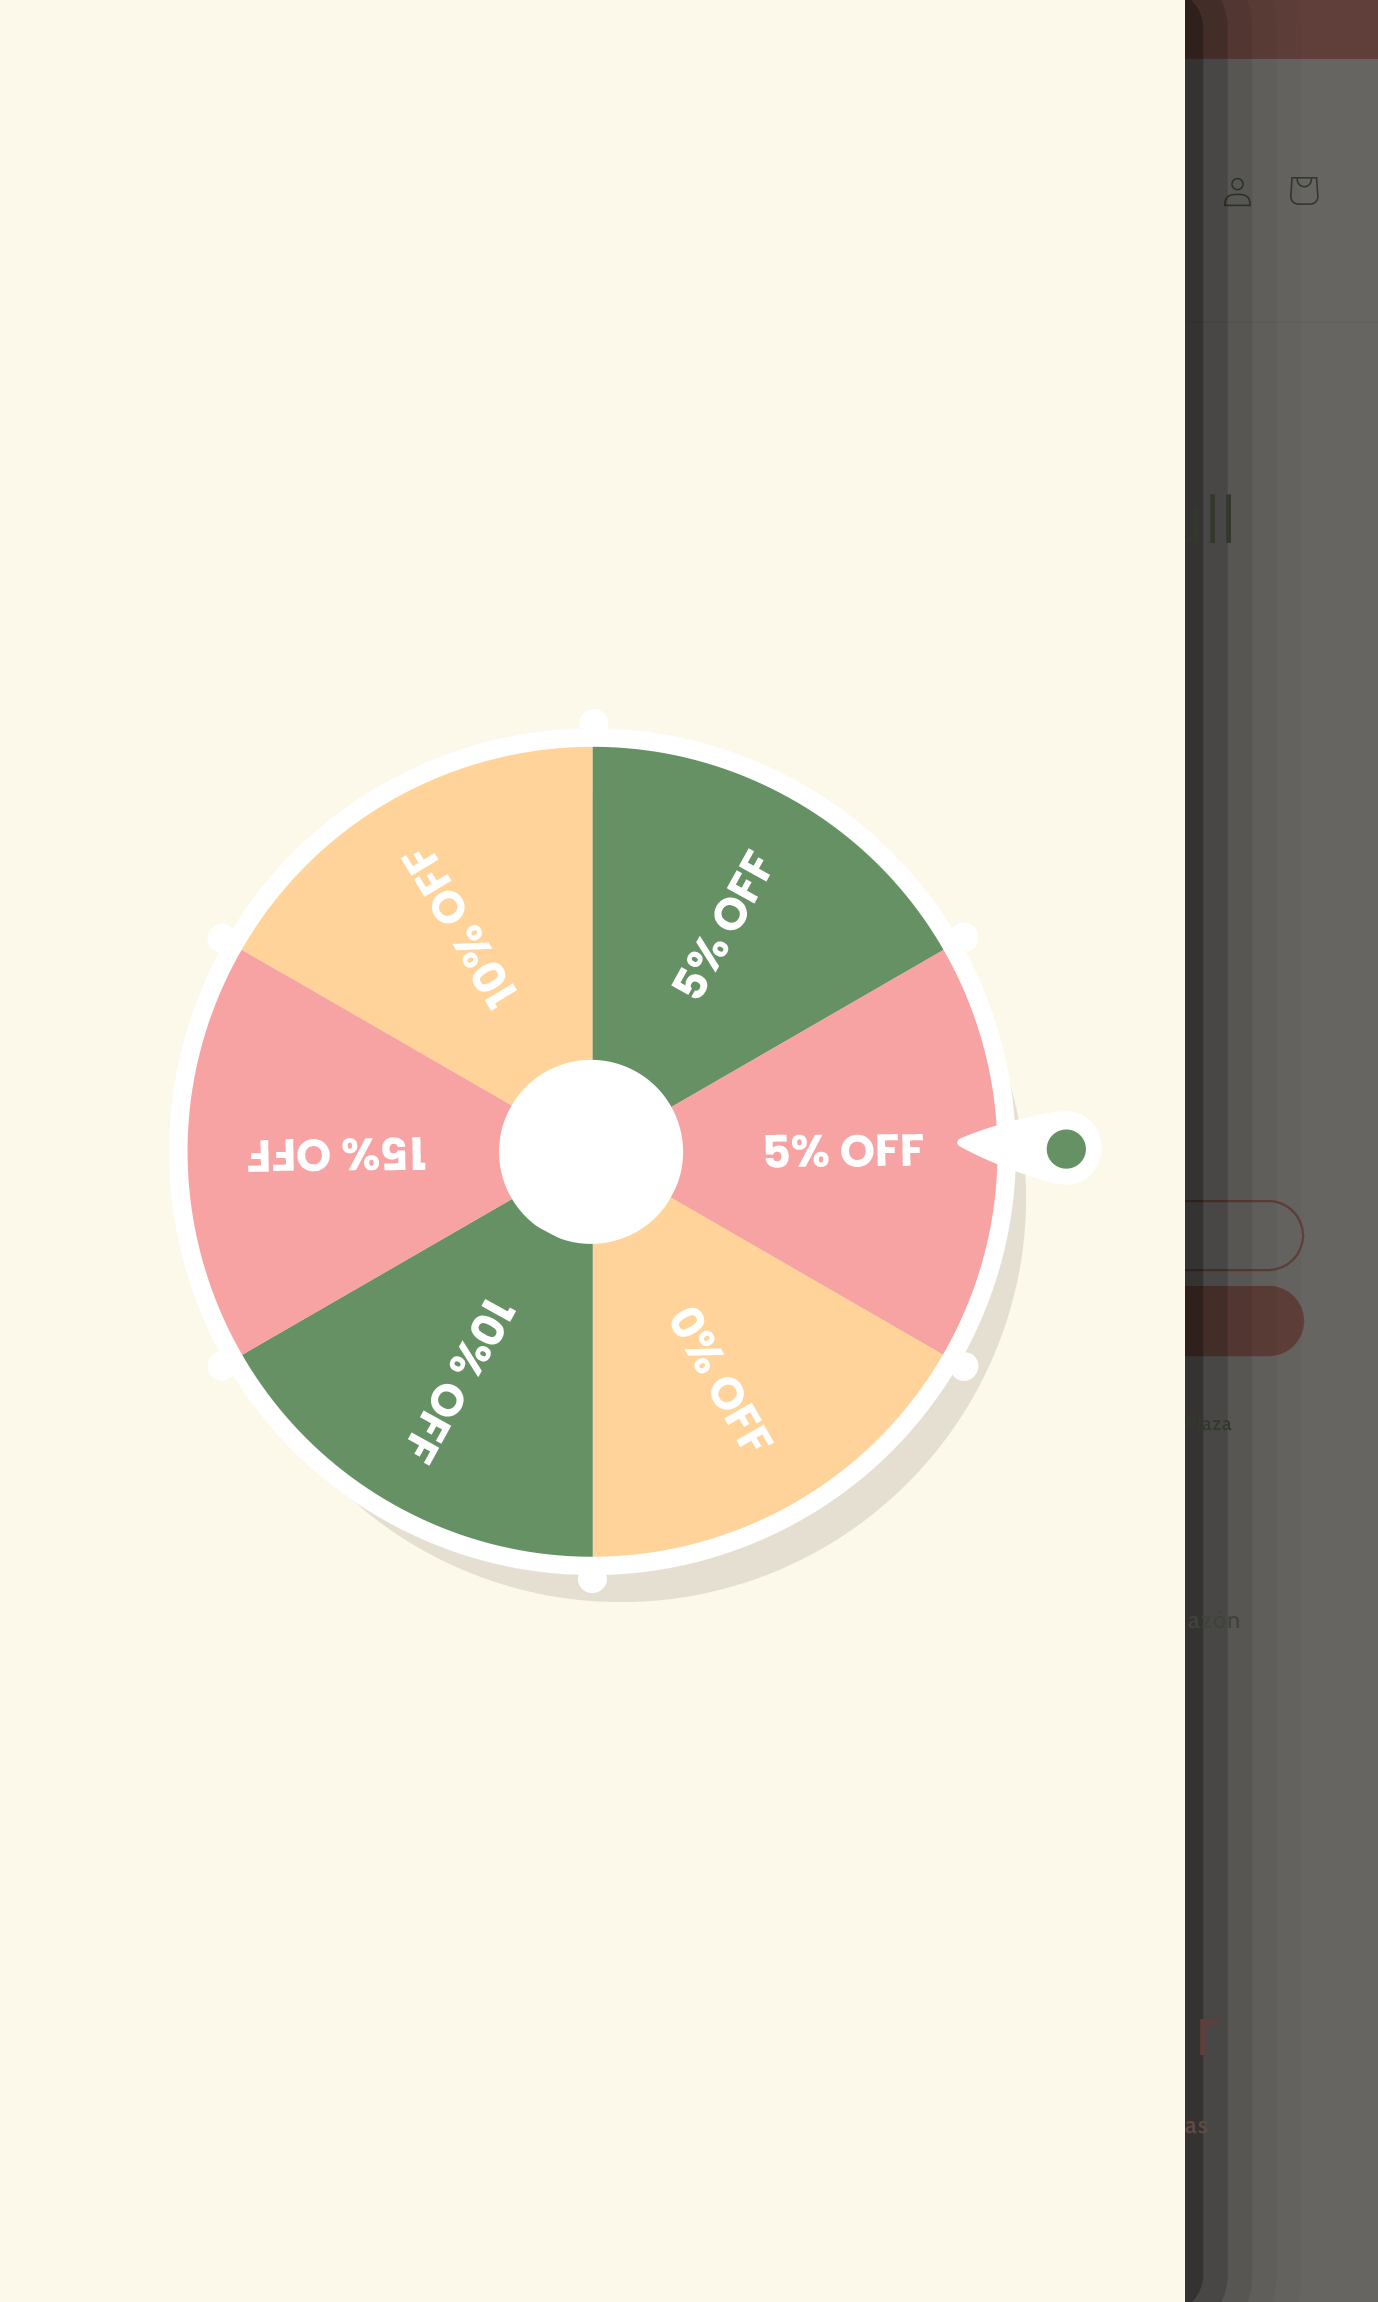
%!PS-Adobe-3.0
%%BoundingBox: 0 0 1378 2302
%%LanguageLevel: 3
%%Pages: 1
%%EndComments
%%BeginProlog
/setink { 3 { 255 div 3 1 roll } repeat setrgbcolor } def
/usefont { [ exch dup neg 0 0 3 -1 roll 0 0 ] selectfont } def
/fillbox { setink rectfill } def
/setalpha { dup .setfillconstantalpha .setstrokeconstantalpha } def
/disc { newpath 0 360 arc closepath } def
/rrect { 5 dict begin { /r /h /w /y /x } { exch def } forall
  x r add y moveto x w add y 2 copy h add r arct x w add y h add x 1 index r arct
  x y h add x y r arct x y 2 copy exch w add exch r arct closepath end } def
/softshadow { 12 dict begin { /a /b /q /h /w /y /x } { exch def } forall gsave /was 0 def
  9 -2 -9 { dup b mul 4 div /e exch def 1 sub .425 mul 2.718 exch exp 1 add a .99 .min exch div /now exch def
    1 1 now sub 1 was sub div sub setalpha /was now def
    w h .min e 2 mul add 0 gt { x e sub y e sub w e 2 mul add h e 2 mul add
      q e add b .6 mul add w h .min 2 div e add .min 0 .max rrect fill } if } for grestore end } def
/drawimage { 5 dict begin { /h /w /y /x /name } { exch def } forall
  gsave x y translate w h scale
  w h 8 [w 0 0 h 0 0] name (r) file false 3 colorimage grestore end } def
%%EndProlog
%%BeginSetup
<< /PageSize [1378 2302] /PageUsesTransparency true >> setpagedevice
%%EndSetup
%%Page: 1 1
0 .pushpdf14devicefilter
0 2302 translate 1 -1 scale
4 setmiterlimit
0 0 1378 2302 102 101 98 fillbox
1185 0 193 57 96 63 58 fillbox
1185 57 193 2 96 66 61 fillbox
1185 321 193 2 98 97 94 fillbox
(assets/img1.rgb) 1224 177 27 30 drawimage
(assets/img2.rgb) 1290 177 29 28 drawimage
96 63 58 setink
2 setlinewidth
766 1201 537 69 34.5 rrect stroke
766 1287 537 68 34 rrect gsave fill grestore
stroke
0 0 0 setink
6 0 1185 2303 0 49 1 softshadow
/Poppins-Light 66 usefont
51 56 44 setink
1162 543 moveto 1 0 (ull) ashow
0 0 1185 2302 252 249 234 fillbox
229 223 209 setink
621 1197 405 disc fill
(assets/img3.rgb) 169 709 847 884 drawimage
/Poppins-Bold 45 usefont
255 255 255 setink
gsave 520 995 translate -121 rotate 0 0 moveto (10% OFF) show grestore
gsave 698 1005 translate -61 rotate 0 0 moveto (5% OFF) show grestore
gsave 426 1137 translate 179 rotate 0 0 moveto (15% OFF) show grestore
gsave 762 1168 translate -1 rotate 0 0 moveto (5% OFF) show grestore
gsave 488 1294 translate 119 rotate 0 0 moveto (10% OFF) show grestore
gsave 666 1318 translate 60 rotate 0 0 moveto (0% OFF) show grestore
(assets/img4.rgb) 957 1111 145 74 drawimage
/Cabin-Medium 19.5 usefont
51 56 44 setink
1185 1430 moveto 0.5 0 (Plaza) ashow
/Cabin-Medium 24 usefont
64 67 58 setink
1188 1628 moveto 1 0 (azón) ashow
/Poppins-Light 66 usefont
96 63 58 setink
1195 2055 moveto 1 0 (r) ashow
/Cabin-Medium 24 usefont
97 73 68 setink
1185 2133 moveto 1 0 (as) ashow
.poppdf14devicefilter showpage
%%EOF
